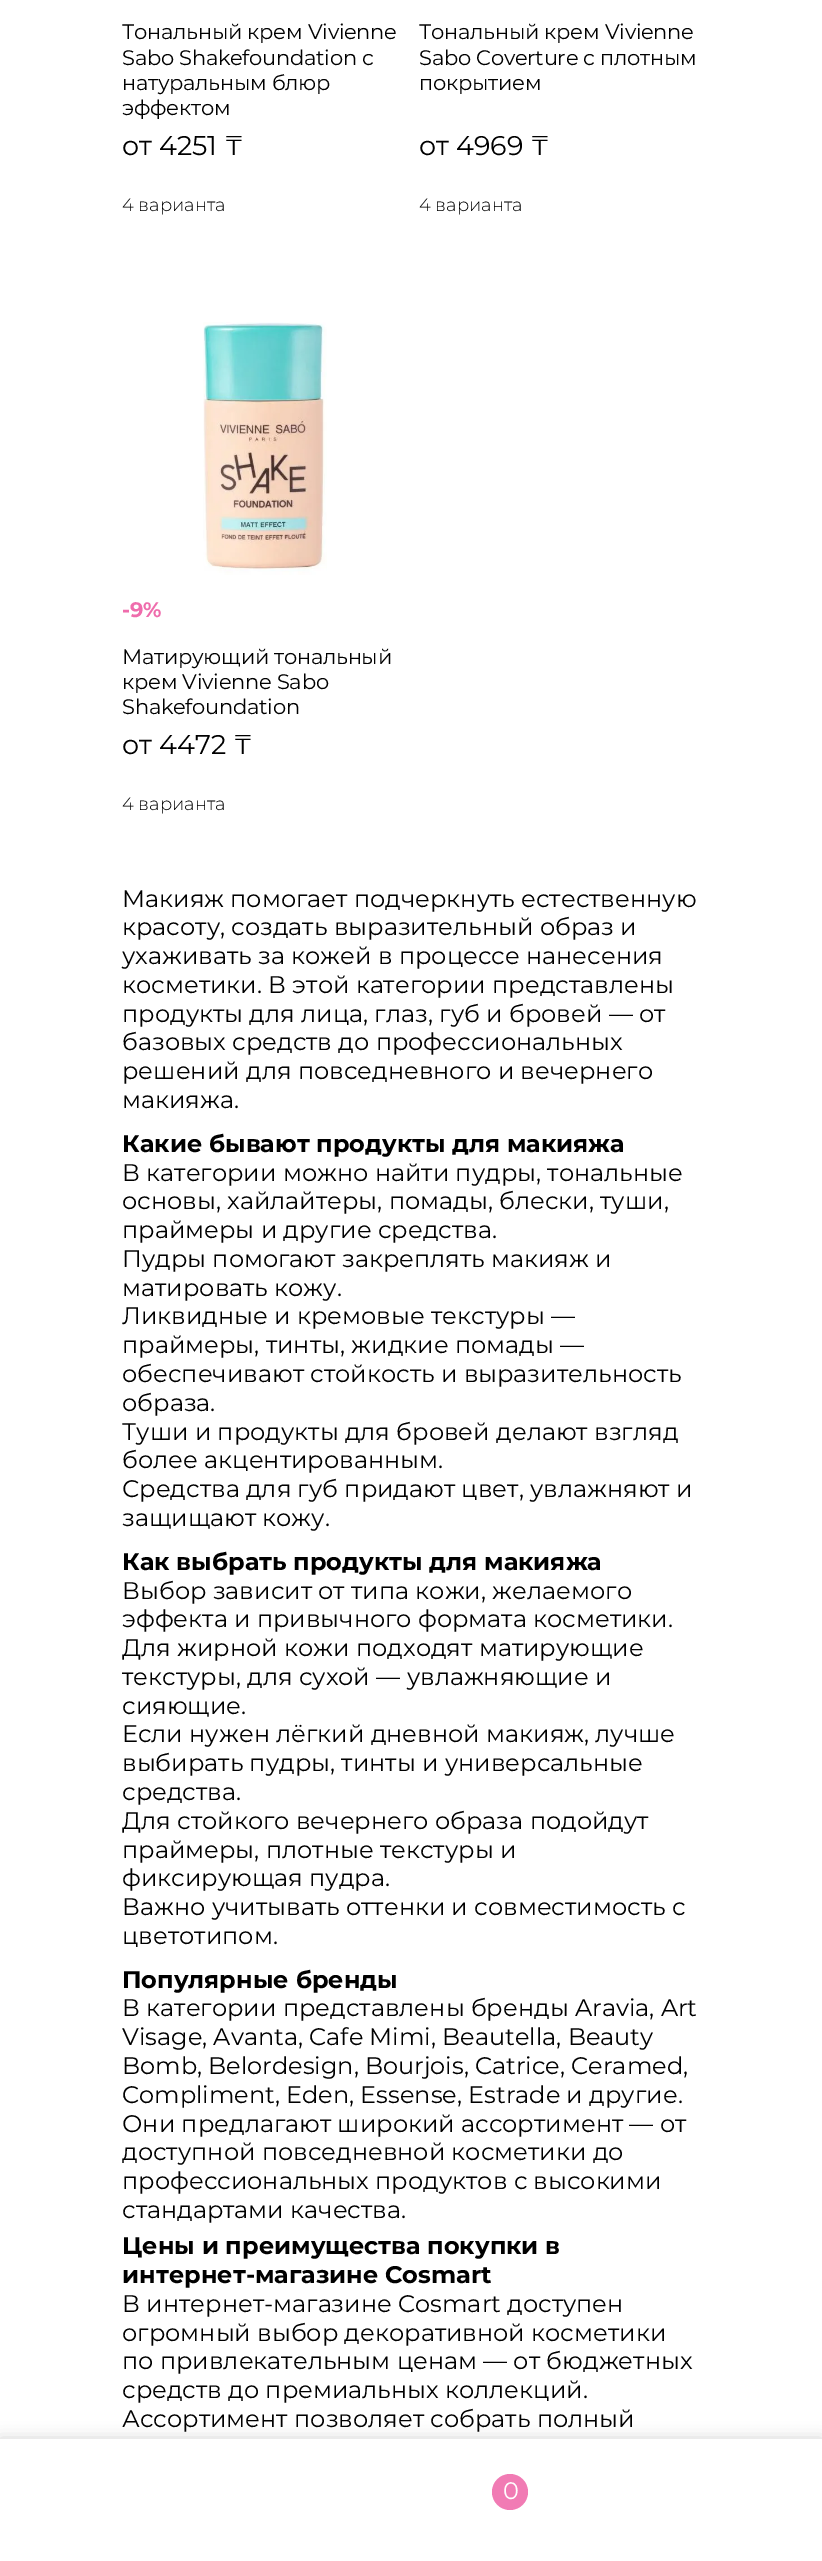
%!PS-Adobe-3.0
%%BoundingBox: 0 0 822 2561
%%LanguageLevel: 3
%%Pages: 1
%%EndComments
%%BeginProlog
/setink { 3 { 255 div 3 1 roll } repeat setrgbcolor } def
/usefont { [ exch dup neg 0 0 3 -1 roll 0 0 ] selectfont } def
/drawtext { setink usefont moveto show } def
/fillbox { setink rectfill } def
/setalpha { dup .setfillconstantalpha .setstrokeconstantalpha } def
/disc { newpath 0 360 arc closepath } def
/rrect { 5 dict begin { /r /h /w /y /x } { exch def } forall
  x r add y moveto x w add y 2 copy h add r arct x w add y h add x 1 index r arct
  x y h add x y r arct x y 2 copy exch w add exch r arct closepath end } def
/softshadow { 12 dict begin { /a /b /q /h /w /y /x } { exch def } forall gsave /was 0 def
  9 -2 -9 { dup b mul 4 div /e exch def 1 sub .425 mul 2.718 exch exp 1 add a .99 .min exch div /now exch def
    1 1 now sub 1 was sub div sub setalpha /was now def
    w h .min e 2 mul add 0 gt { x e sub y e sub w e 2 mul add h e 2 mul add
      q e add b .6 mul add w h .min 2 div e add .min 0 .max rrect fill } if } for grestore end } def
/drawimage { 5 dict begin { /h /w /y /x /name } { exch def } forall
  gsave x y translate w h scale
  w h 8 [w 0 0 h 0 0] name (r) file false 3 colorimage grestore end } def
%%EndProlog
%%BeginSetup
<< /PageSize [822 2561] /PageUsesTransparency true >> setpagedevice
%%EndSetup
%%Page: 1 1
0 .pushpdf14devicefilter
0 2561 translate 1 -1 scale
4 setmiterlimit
0 0 822 2561 255 255 255 fillbox
/Montserrat-Regular 21 usefont
0 0 0 setink
122 39 moveto -0.25 0 (Тональный крем Vivienne) ashow
122 65 moveto -0.25 0 (Sabo Shakefoundation с) ashow
122 90 moveto -0.25 0 (натуральным блюр) ashow
122 115 moveto -0.25 0 (эффектом) ashow
(от 4251 ₸) 122 155 /Montserrat-Regular 27 0 0 0 drawtext
(4 варианта) 122 211 /Montserrat-Light 18 0 0 0 drawtext
/Montserrat-Regular 21 usefont
419 39 moveto -0.25 0 (Тональный крем Vivienne) ashow
419 65 moveto -0.25 0 (Sabo Coverture с плотным) ashow
419 90 moveto -0.25 0 (покрытием) ashow
(от 4969 ₸) 419 155 /Montserrat-Regular 27 0 0 0 drawtext
(4 варианта) 419 211 /Montserrat-Light 18 0 0 0 drawtext
(assets/img1.rgb) 203 322 124 253 drawimage
(-9%) 122 617 /Montserrat-Bold 21 239 108 172 drawtext
/Montserrat-Regular 21 usefont
0 0 0 setink
122 664 moveto -0.25 0 (Матирующий тональный) ashow
122 689 moveto -0.25 0 (крем Vivienne Sabo) ashow
122 714 moveto -0.25 0 (Shakefoundation) ashow
(от 4472 ₸) 122 754 /Montserrat-Regular 27 0 0 0 drawtext
(4 варианта) 122 810 /Montserrat-Light 18 0 0 0 drawtext
(Макияж помогает подчеркнуть естественную) 122 907 /Montserrat-Regular 24 0 0 0 drawtext
(красоту, создать выразительный образ и) 122 935 /Montserrat-Regular 24 0 0 0 drawtext
(ухаживать за кожей в процессе нанесения) 122 964 /Montserrat-Regular 24 0 0 0 drawtext
(косметики. В этой категории представлены) 122 993 /Montserrat-Regular 24 0 0 0 drawtext
(продукты для лица, глаз, губ и бровей — от) 122 1022 /Montserrat-Regular 24 0 0 0 drawtext
(базовых средств до профессиональных) 122 1050 /Montserrat-Regular 24 0 0 0 drawtext
(решений для повседневного и вечернего) 122 1079 /Montserrat-Regular 24 0 0 0 drawtext
(макияжа.) 122 1108 /Montserrat-Regular 24 0 0 0 drawtext
(Какие бывают продукты для макияжа) 122 1152 /Montserrat-Bold 24 0 0 0 drawtext
(В категории можно найти пудры, тональные) 122 1181 /Montserrat-Regular 24 0 0 0 drawtext
(основы, хайлайтеры, помады, блески, туши,) 122 1209 /Montserrat-Regular 24 0 0 0 drawtext
(праймеры и другие средства.) 122 1238 /Montserrat-Regular 24 0 0 0 drawtext
(Пудры помогают закреплять макияж и) 122 1267 /Montserrat-Regular 24 0 0 0 drawtext
(матировать кожу.) 122 1296 /Montserrat-Regular 24 0 0 0 drawtext
(Ликвидные и кремовые текстуры —) 122 1324 /Montserrat-Regular 24 0 0 0 drawtext
(праймеры, тинты, жидкие помады —) 122 1353 /Montserrat-Regular 24 0 0 0 drawtext
(обеспечивают стойкость и выразительность) 122 1382 /Montserrat-Regular 24 0 0 0 drawtext
(образа.) 122 1411 /Montserrat-Regular 24 0 0 0 drawtext
(Туши и продукты для бровей делают взгляд) 122 1440 /Montserrat-Regular 24 0 0 0 drawtext
(более акцентированным.) 122 1468 /Montserrat-Regular 24 0 0 0 drawtext
(Средства для губ придают цвет, увлажняют и) 122 1497 /Montserrat-Regular 24 0 0 0 drawtext
(защищают кожу.) 122 1526 /Montserrat-Regular 24 0 0 0 drawtext
(Как выбрать продукты для макияжа) 122 1570 /Montserrat-Bold 24 0 0 0 drawtext
(Выбор зависит от типа кожи, желаемого) 122 1599 /Montserrat-Regular 24 0 0 0 drawtext
(эффекта и привычного формата косметики.) 122 1627 /Montserrat-Regular 24 0 0 0 drawtext
(Для жирной кожи подходят матирующие) 122 1656 /Montserrat-Regular 24 0 0 0 drawtext
(текстуры, для сухой — увлажняющие и) 122 1685 /Montserrat-Regular 24 0 0 0 drawtext
(сияющие.) 122 1714 /Montserrat-Regular 24 0 0 0 drawtext
(Если нужен лёгкий дневной макияж, лучше) 122 1742 /Montserrat-Regular 24 0 0 0 drawtext
(выбирать пудры, тинты и универсальные) 122 1771 /Montserrat-Regular 24 0 0 0 drawtext
(средства.) 122 1800 /Montserrat-Regular 24 0 0 0 drawtext
(Для стойкого вечернего образа подойдут) 122 1829 /Montserrat-Regular 24 0 0 0 drawtext
(праймеры, плотные текстуры и) 122 1858 /Montserrat-Regular 24 0 0 0 drawtext
(фиксирующая пудра.) 122 1886 /Montserrat-Regular 24 0 0 0 drawtext
(Важно учитывать оттенки и совместимость с) 122 1915 /Montserrat-Regular 24 0 0 0 drawtext
(цветотипом.) 122 1944 /Montserrat-Regular 24 0 0 0 drawtext
(Популярные бренды) 122 1988 /Montserrat-Bold 24 0 0 0 drawtext
(В категории представлены бренды Aravia, Art) 122 2016 /Montserrat-Regular 24 0 0 0 drawtext
(Visage, Avanta, Cafe Mimi, Beautella, Beauty) 122 2045 /Montserrat-Regular 24 0 0 0 drawtext
(Bomb, Belordesign, Bourjois, Catrice, Ceramed,) 122 2074 /Montserrat-Regular 24 0 0 0 drawtext
(Compliment, Eden, Essense, Estrade и другие.) 122 2103 /Montserrat-Regular 24 0 0 0 drawtext
(Они предлагают широкий ассортимент — от) 122 2132 /Montserrat-Regular 24 0 0 0 drawtext
(доступной повседневной косметики до) 122 2160 /Montserrat-Regular 24 0 0 0 drawtext
(профессиональных продуктов с высокими) 122 2189 /Montserrat-Regular 24 0 0 0 drawtext
(стандартами качества.) 122 2218 /Montserrat-Regular 24 0 0 0 drawtext
(Цены и преимущества покупки в) 122 2254 /Montserrat-Bold 24 0 0 0 drawtext
(интернет-магазине Cosmart) 122 2283 /Montserrat-Bold 24 0 0 0 drawtext
(В интернет-магазине Cosmart доступен) 122 2312 /Montserrat-Regular 24 0 0 0 drawtext
(огромный выбор декоративной косметики) 122 2341 /Montserrat-Regular 24 0 0 0 drawtext
(по привлекательным ценам — от бюджетных) 122 2369 /Montserrat-Regular 24 0 0 0 drawtext
(средств до премиальных коллекций.) 122 2398 /Montserrat-Regular 24 0 0 0 drawtext
(Ассортимент позволяет собрать полный) 122 2427 /Montserrat-Regular 24 0 0 0 drawtext
0 2438 822 123 0 7.5 0.15 softshadow
0 2439 822 122 255 255 255 fillbox
241 123 180 setink
510 2492 18 disc fill
(0) 503 2499 /Montserrat-Regular 24 255 255 255 drawtext
.poppdf14devicefilter showpage
%%EOF
